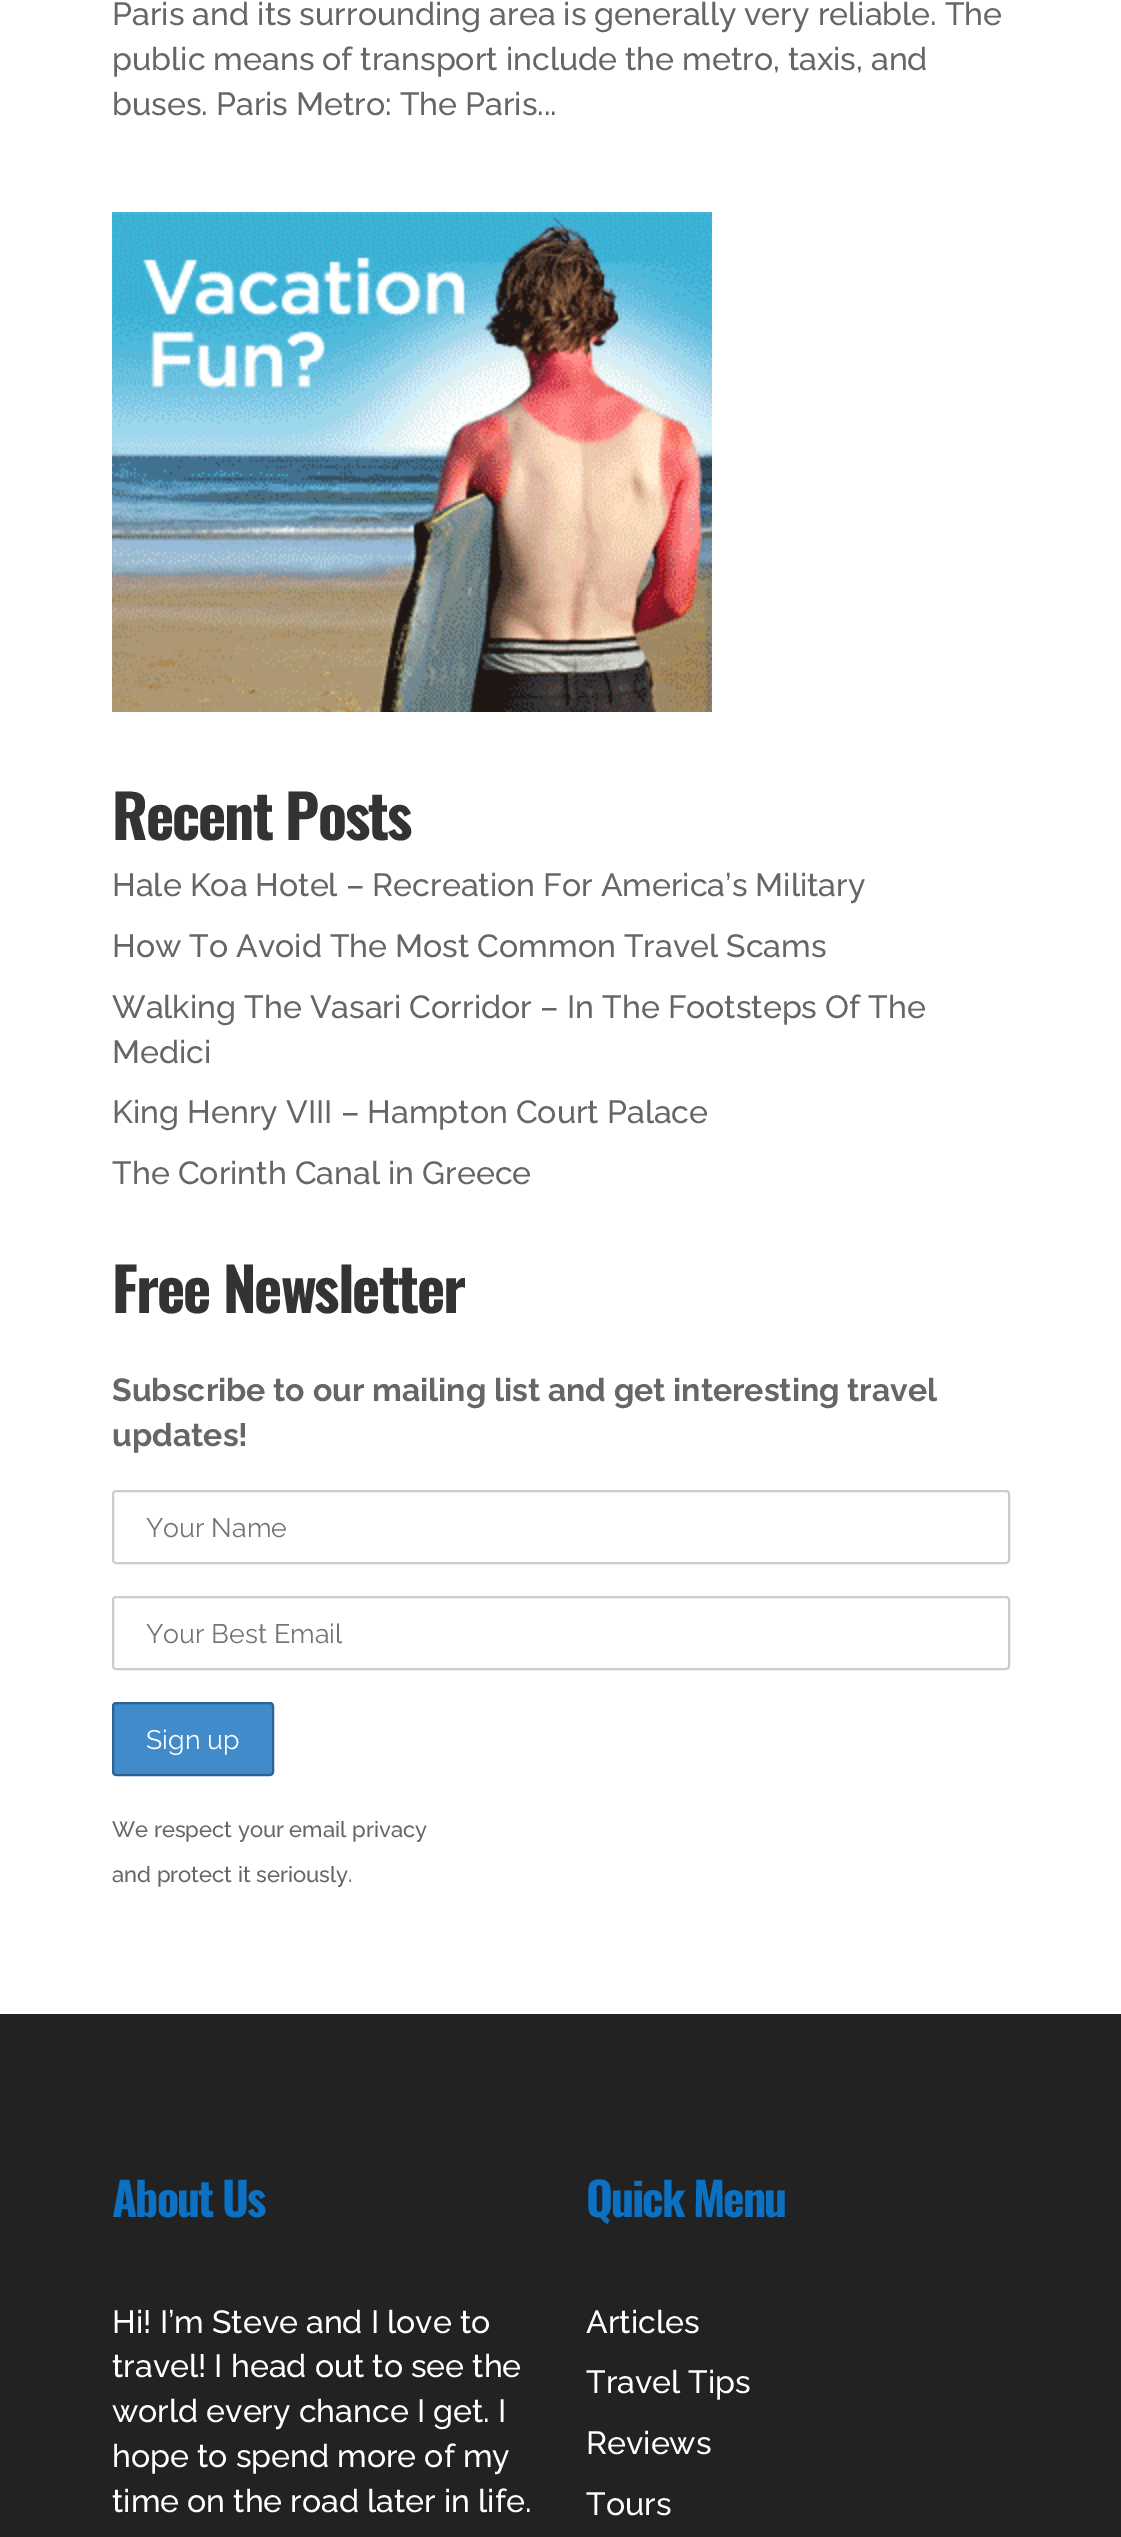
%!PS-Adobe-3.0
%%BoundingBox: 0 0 1121 2537
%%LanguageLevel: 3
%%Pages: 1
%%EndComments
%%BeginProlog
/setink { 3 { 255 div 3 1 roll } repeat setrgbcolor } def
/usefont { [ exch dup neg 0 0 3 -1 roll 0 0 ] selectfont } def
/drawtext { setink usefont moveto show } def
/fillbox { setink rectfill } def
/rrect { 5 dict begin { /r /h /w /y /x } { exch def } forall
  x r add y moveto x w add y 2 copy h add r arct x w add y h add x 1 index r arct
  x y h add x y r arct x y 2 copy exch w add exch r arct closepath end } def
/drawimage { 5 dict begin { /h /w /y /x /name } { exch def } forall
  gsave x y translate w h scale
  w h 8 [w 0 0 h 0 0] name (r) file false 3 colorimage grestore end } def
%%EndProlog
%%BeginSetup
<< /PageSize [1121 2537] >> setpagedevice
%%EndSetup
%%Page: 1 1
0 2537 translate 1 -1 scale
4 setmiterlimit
0 0 1121 2537 255 255 255 fillbox
(Paris and its surrounding area is generally very reliable. The) 112 25 /Raleway-Thin 32 102 102 102 drawtext
(public means of transport include the metro, taxis, and) 112 70 /Raleway-Thin 32 102 102 102 drawtext
(buses. Paris Metro: The Paris...) 112 115 /Raleway-Thin 32 102 102 102 drawtext
(assets/img1.rgb) 112 212 600 500 drawimage
/Oswald-Bold 60 usefont
51 51 51 setink
112 840 moveto -2 0 (Recent Posts) ashow
(Hale Koa Hotel – Recreation For America’s Military) 112 896 /Raleway-Thin 32 102 102 102 drawtext
(How To Avoid The Most Common Travel Scams) 112 957 /Raleway-Thin 32 102 102 102 drawtext
(Walking The Vasari Corridor – In The Footsteps Of The) 112 1018 /Raleway-Thin 32 102 102 102 drawtext
(Medici) 112 1063 /Raleway-Thin 32 102 102 102 drawtext
(King Henry VIII – Hampton Court Palace) 112 1123 /Raleway-Thin 32 102 102 102 drawtext
(The Corinth Canal in Greece) 112 1184 /Raleway-Thin 32 102 102 102 drawtext
/Oswald-Bold 60 usefont
51 51 51 setink
112 1313 moveto -2 0 (Free Newsletter) ashow
(Subscribe to our mailing list and get interesting travel) 112 1401 /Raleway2-Thin 32 102 102 102 drawtext
(updates!) 112 1446 /Raleway2-Thin 32 102 102 102 drawtext
204 204 204 setink
2 setlinewidth
113 1491 896 72 3 rrect stroke
(Your Name) 146 1537 /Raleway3-Thin 26.75 117 117 117 drawtext
204 204 204 setink
113 1597 896 72 3 rrect stroke
(Your Best Email) 146 1643 /Raleway3-Thin 26.75 117 117 117 drawtext
66 139 202 setink
113 1703 160 72 3 rrect gsave fill grestore
42 100 150 setink
stroke
(Sign up) 146 1749 /Raleway3-Thin 26.75 255 255 255 drawtext
(We respect your email privacy) 112 1837 /Raleway-Thin 22 102 102 102 drawtext
(and protect it seriously.) 112 1882 /Raleway-Thin 22 102 102 102 drawtext
0 2014 1121 523 34 34 34 fillbox
/Oswald-Bold 46 usefont
12 113 195 setink
112 2217 moveto -2 0 (About Us) ashow
(Hi! I’m Steve and I love to) 112 2333 /Raleway-Thin 32 255 255 255 drawtext
(travel! I head out to see the) 112 2377 /Raleway-Thin 32 255 255 255 drawtext
(world every chance I get. I) 112 2422 /Raleway-Thin 32 255 255 255 drawtext
(hope to spend more of my) 112 2467 /Raleway-Thin 32 255 255 255 drawtext
(time on the road later in life.) 112 2512 /Raleway-Thin 32 255 255 255 drawtext
/Oswald-Bold 46 usefont
12 113 195 setink
586 2217 moveto -2 0 (Quick Menu) ashow
(Articles) 586 2333 /Raleway-Thin 32 255 255 255 drawtext
(Travel Tips) 586 2393 /Raleway-Thin 32 255 255 255 drawtext
(Reviews) 586 2454 /Raleway-Thin 32 255 255 255 drawtext
(Tours) 586 2515 /Raleway-Thin 32 255 255 255 drawtext
showpage
%%EOF
